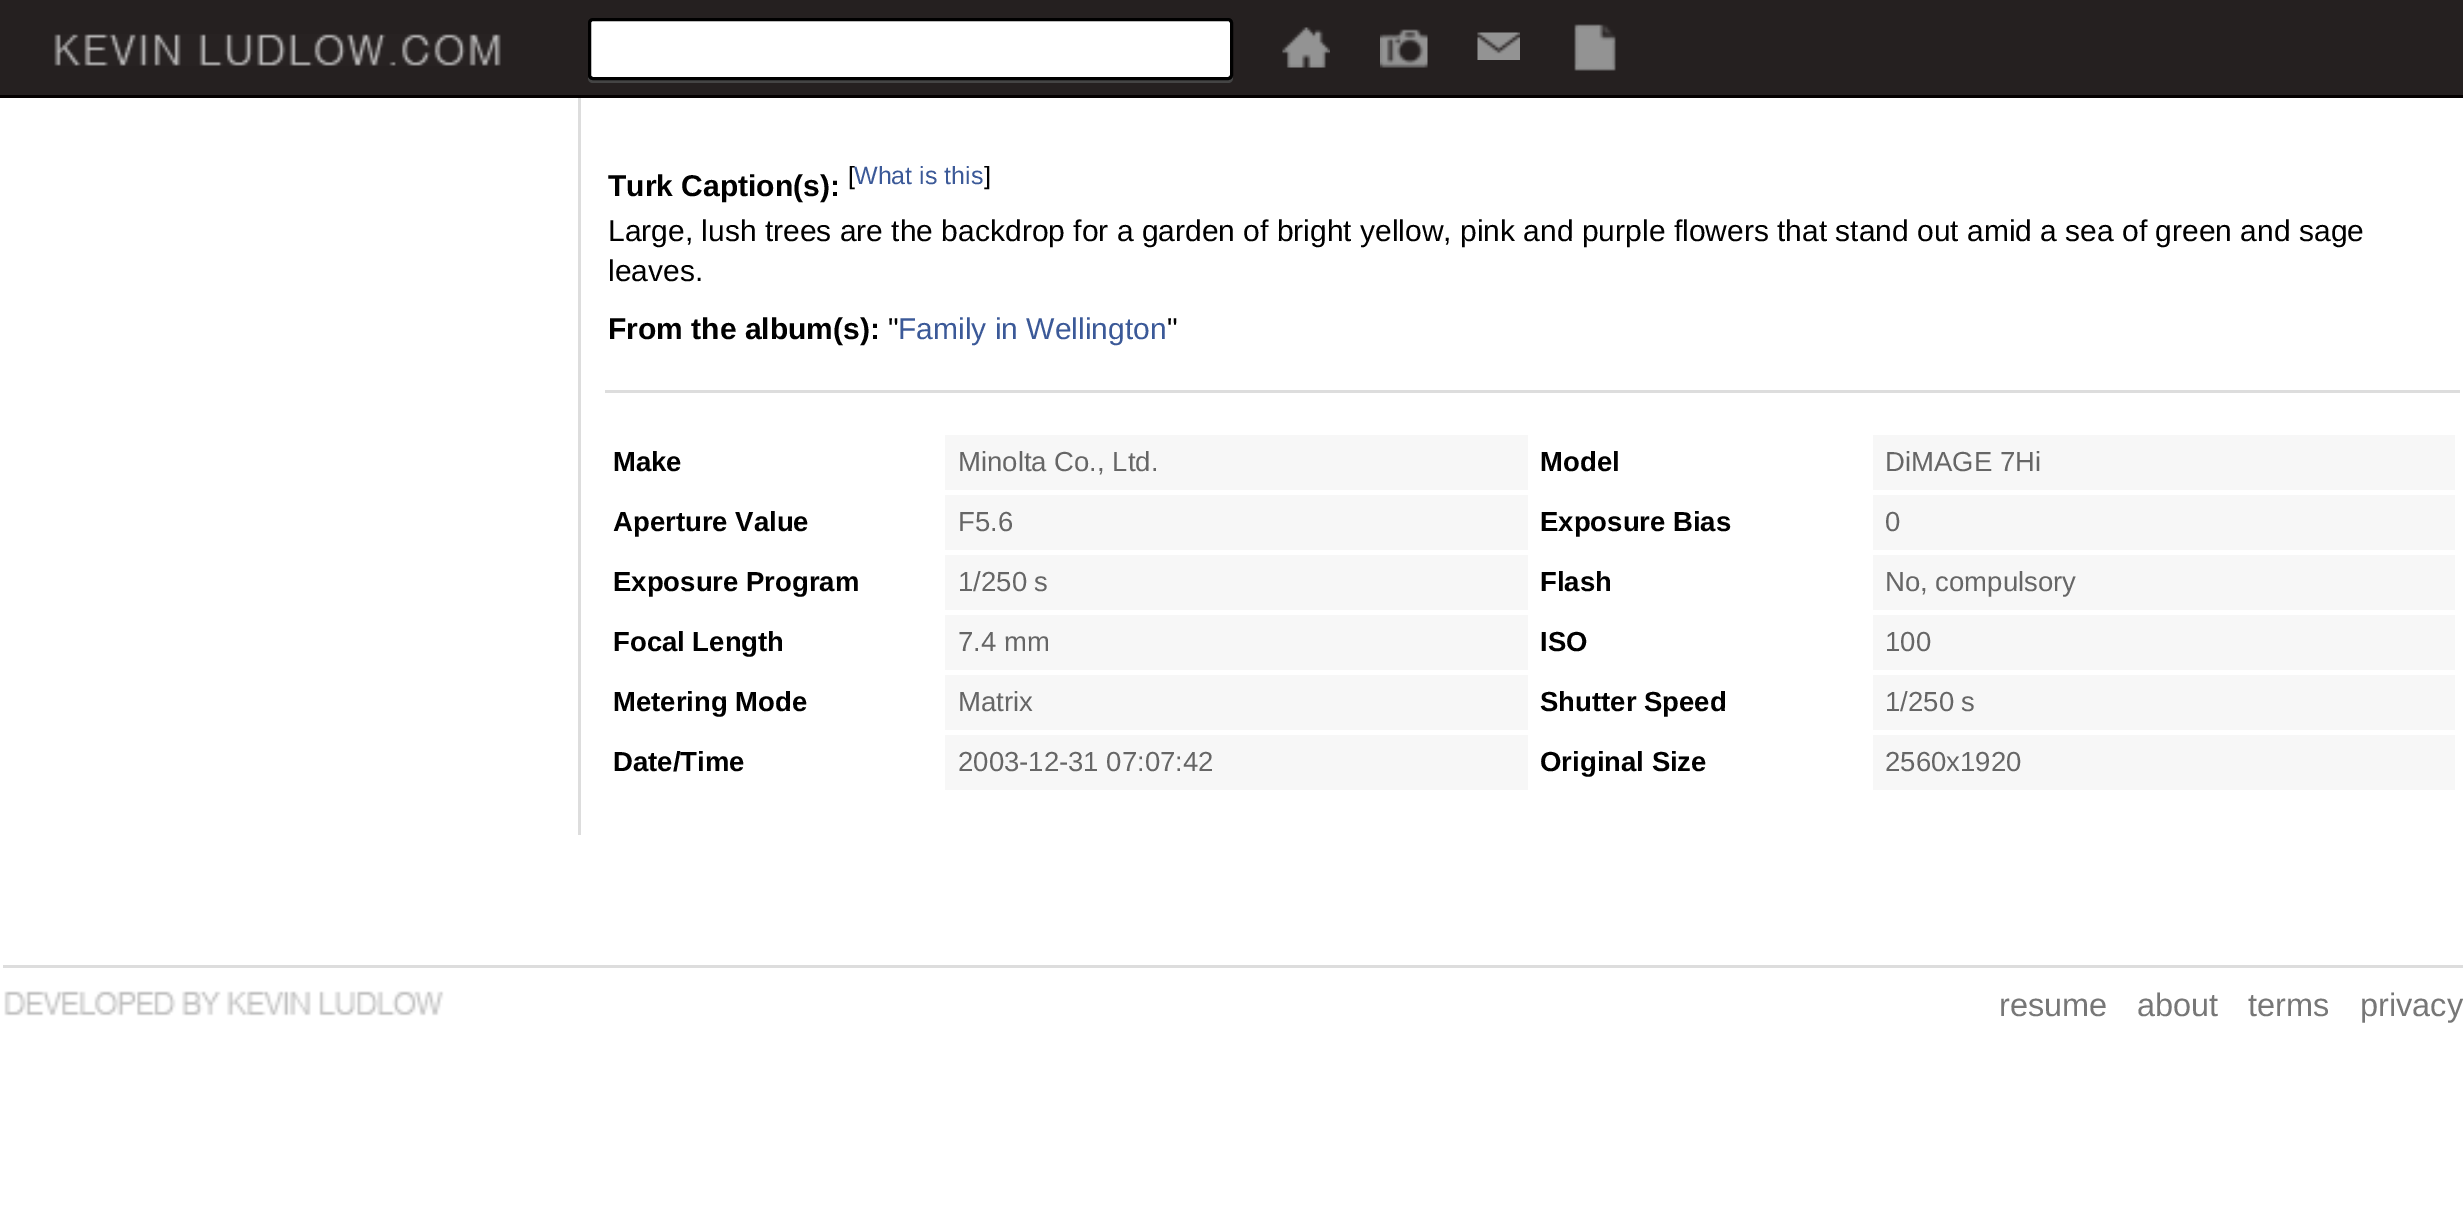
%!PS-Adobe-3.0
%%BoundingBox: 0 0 2463 1216
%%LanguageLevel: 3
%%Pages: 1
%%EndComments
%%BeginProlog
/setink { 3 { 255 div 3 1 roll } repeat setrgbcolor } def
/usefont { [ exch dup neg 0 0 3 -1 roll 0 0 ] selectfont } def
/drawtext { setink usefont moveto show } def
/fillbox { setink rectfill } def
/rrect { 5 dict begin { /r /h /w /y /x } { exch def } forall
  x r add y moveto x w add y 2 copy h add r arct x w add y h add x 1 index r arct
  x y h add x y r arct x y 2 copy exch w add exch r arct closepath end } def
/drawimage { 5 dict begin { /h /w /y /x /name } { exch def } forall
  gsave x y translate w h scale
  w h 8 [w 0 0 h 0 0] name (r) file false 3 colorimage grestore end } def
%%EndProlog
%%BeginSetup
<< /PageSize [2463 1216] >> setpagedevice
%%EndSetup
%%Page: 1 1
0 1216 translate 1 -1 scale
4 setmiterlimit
0 0 2463 1216 255 255 255 fillbox
0 0 2463 95 37 32 32 fillbox
0 95 2463 3 4 0 0 fillbox
(assets/img1.rgb) 54 34 447 32 drawimage
68 68 68 setink
588 77 moveto 588 78 lineto 588 81 590 83 593 83 curveto 1228 83 lineto 1231 83 1233 81 1233 78 curveto 1233 25 lineto 1232 23 lineto 1232 75 lineto 1232 78 1230 80 1228 80 curveto 592 80 lineto 591 80 589 79 588 77 curveto closepath fill
255 255 255 setink
589.5 19.5 642 59 3.5 rrect gsave fill grestore
0 0 0 setink
3 setlinewidth
stroke
(assets/img2.rgb) 1282 27 48 41 drawimage
(assets/img3.rgb) 1380 29 48 39 drawimage
(assets/img4.rgb) 1477 32 43 28 drawimage
(assets/img5.rgb) 1574 24 42 47 drawimage
578 98 3 737 221 221 221 fillbox
(Turk Caption\(s\):) 608 196 /LiberationSans-Bold 30 0 0 0 drawtext
([) 848 184 /LiberationSans-Regular 25 0 0 0 drawtext
(What is this) 854 184 /LiberationSans-Regular 25 59 89 152 drawtext
(]) 984 184 /LiberationSans-Regular 25 0 0 0 drawtext
(Large, lush trees are the backdrop for a garden of bright yellow, pink and purple flowers that stand out amid a sea of green and sage) 608 241 /LiberationSans-Regular 30 0 0 0 drawtext
(leaves.) 608 281 /LiberationSans-Regular 30 0 0 0 drawtext
(From the album\(s\):) 608 339 /LiberationSans-Bold 30 0 0 0 drawtext
(") 888 339 /LiberationSans-Regular 30 0 0 0 drawtext
(Family in Wellington) 898 339 /LiberationSans-Regular 30 59 89 152 drawtext
(") 1167 339 /LiberationSans-Regular 30 0 0 0 drawtext
605 390 1855 3 221 221 221 fillbox
(Make) 613 471 /LiberationSans-Bold 27.5 0 0 0 drawtext
945 435 583 55 247 247 247 fillbox
(Minolta Co., Ltd.) 958 471 /LiberationSans-Regular 27.5 102 102 102 drawtext
(Aperture Value) 613 531 /LiberationSans-Bold 27.5 0 0 0 drawtext
945 495 583 55 247 247 247 fillbox
(F5.6) 958 531 /LiberationSans-Regular 27.5 102 102 102 drawtext
(Exposure Program) 613 591 /LiberationSans-Bold 27.5 0 0 0 drawtext
945 555 583 55 247 247 247 fillbox
(1/250 s) 958 591 /LiberationSans-Regular 27.5 102 102 102 drawtext
(Focal Length) 613 651 /LiberationSans-Bold 27.5 0 0 0 drawtext
945 615 583 55 247 247 247 fillbox
(7.4 mm) 958 651 /LiberationSans-Regular 27.5 102 102 102 drawtext
(Metering Mode) 613 711 /LiberationSans-Bold 27.5 0 0 0 drawtext
945 675 583 55 247 247 247 fillbox
(Matrix) 958 711 /LiberationSans-Regular 27.5 102 102 102 drawtext
(Date/Time) 613 771 /LiberationSans-Bold 27.5 0 0 0 drawtext
945 735 583 55 247 247 247 fillbox
(2003-12-31 07:07:42) 958 771 /LiberationSans-Regular 27.5 102 102 102 drawtext
(Model) 1540 471 /LiberationSans-Bold 27.5 0 0 0 drawtext
1873 435 582 55 247 247 247 fillbox
(DiMAGE 7Hi) 1885 471 /LiberationSans-Regular 27.5 102 102 102 drawtext
(Exposure Bias) 1540 531 /LiberationSans-Bold 27.5 0 0 0 drawtext
1873 495 582 55 247 247 247 fillbox
(0) 1885 531 /LiberationSans-Regular 27.5 102 102 102 drawtext
(Flash) 1540 591 /LiberationSans-Bold 27.5 0 0 0 drawtext
1873 555 582 55 247 247 247 fillbox
(No, compulsory) 1885 591 /LiberationSans-Regular 27.5 102 102 102 drawtext
(ISO) 1540 651 /LiberationSans-Bold 27.5 0 0 0 drawtext
1873 615 582 55 247 247 247 fillbox
(100) 1885 651 /LiberationSans-Regular 27.5 102 102 102 drawtext
(Shutter Speed) 1540 711 /LiberationSans-Bold 27.5 0 0 0 drawtext
1873 675 582 55 247 247 247 fillbox
(1/250 s) 1885 711 /LiberationSans-Regular 27.5 102 102 102 drawtext
(Original Size) 1540 771 /LiberationSans-Bold 27.5 0 0 0 drawtext
1873 735 582 55 247 247 247 fillbox
(2560x1920) 1885 771 /LiberationSans-Regular 27.5 102 102 102 drawtext
3 965 2460 3 221 221 221 fillbox
(assets/img6.rgb) 4 991 440 25 drawimage
(resume) 1999 1016 /LiberationSans-Regular 32.5 119 119 119 drawtext
(about) 2137 1016 /LiberationSans-Regular 32.5 119 119 119 drawtext
(terms) 2248 1016 /LiberationSans-Regular 32.5 119 119 119 drawtext
(privacy) 2360 1016 /LiberationSans-Regular 32.5 119 119 119 drawtext
showpage
%%EOF
